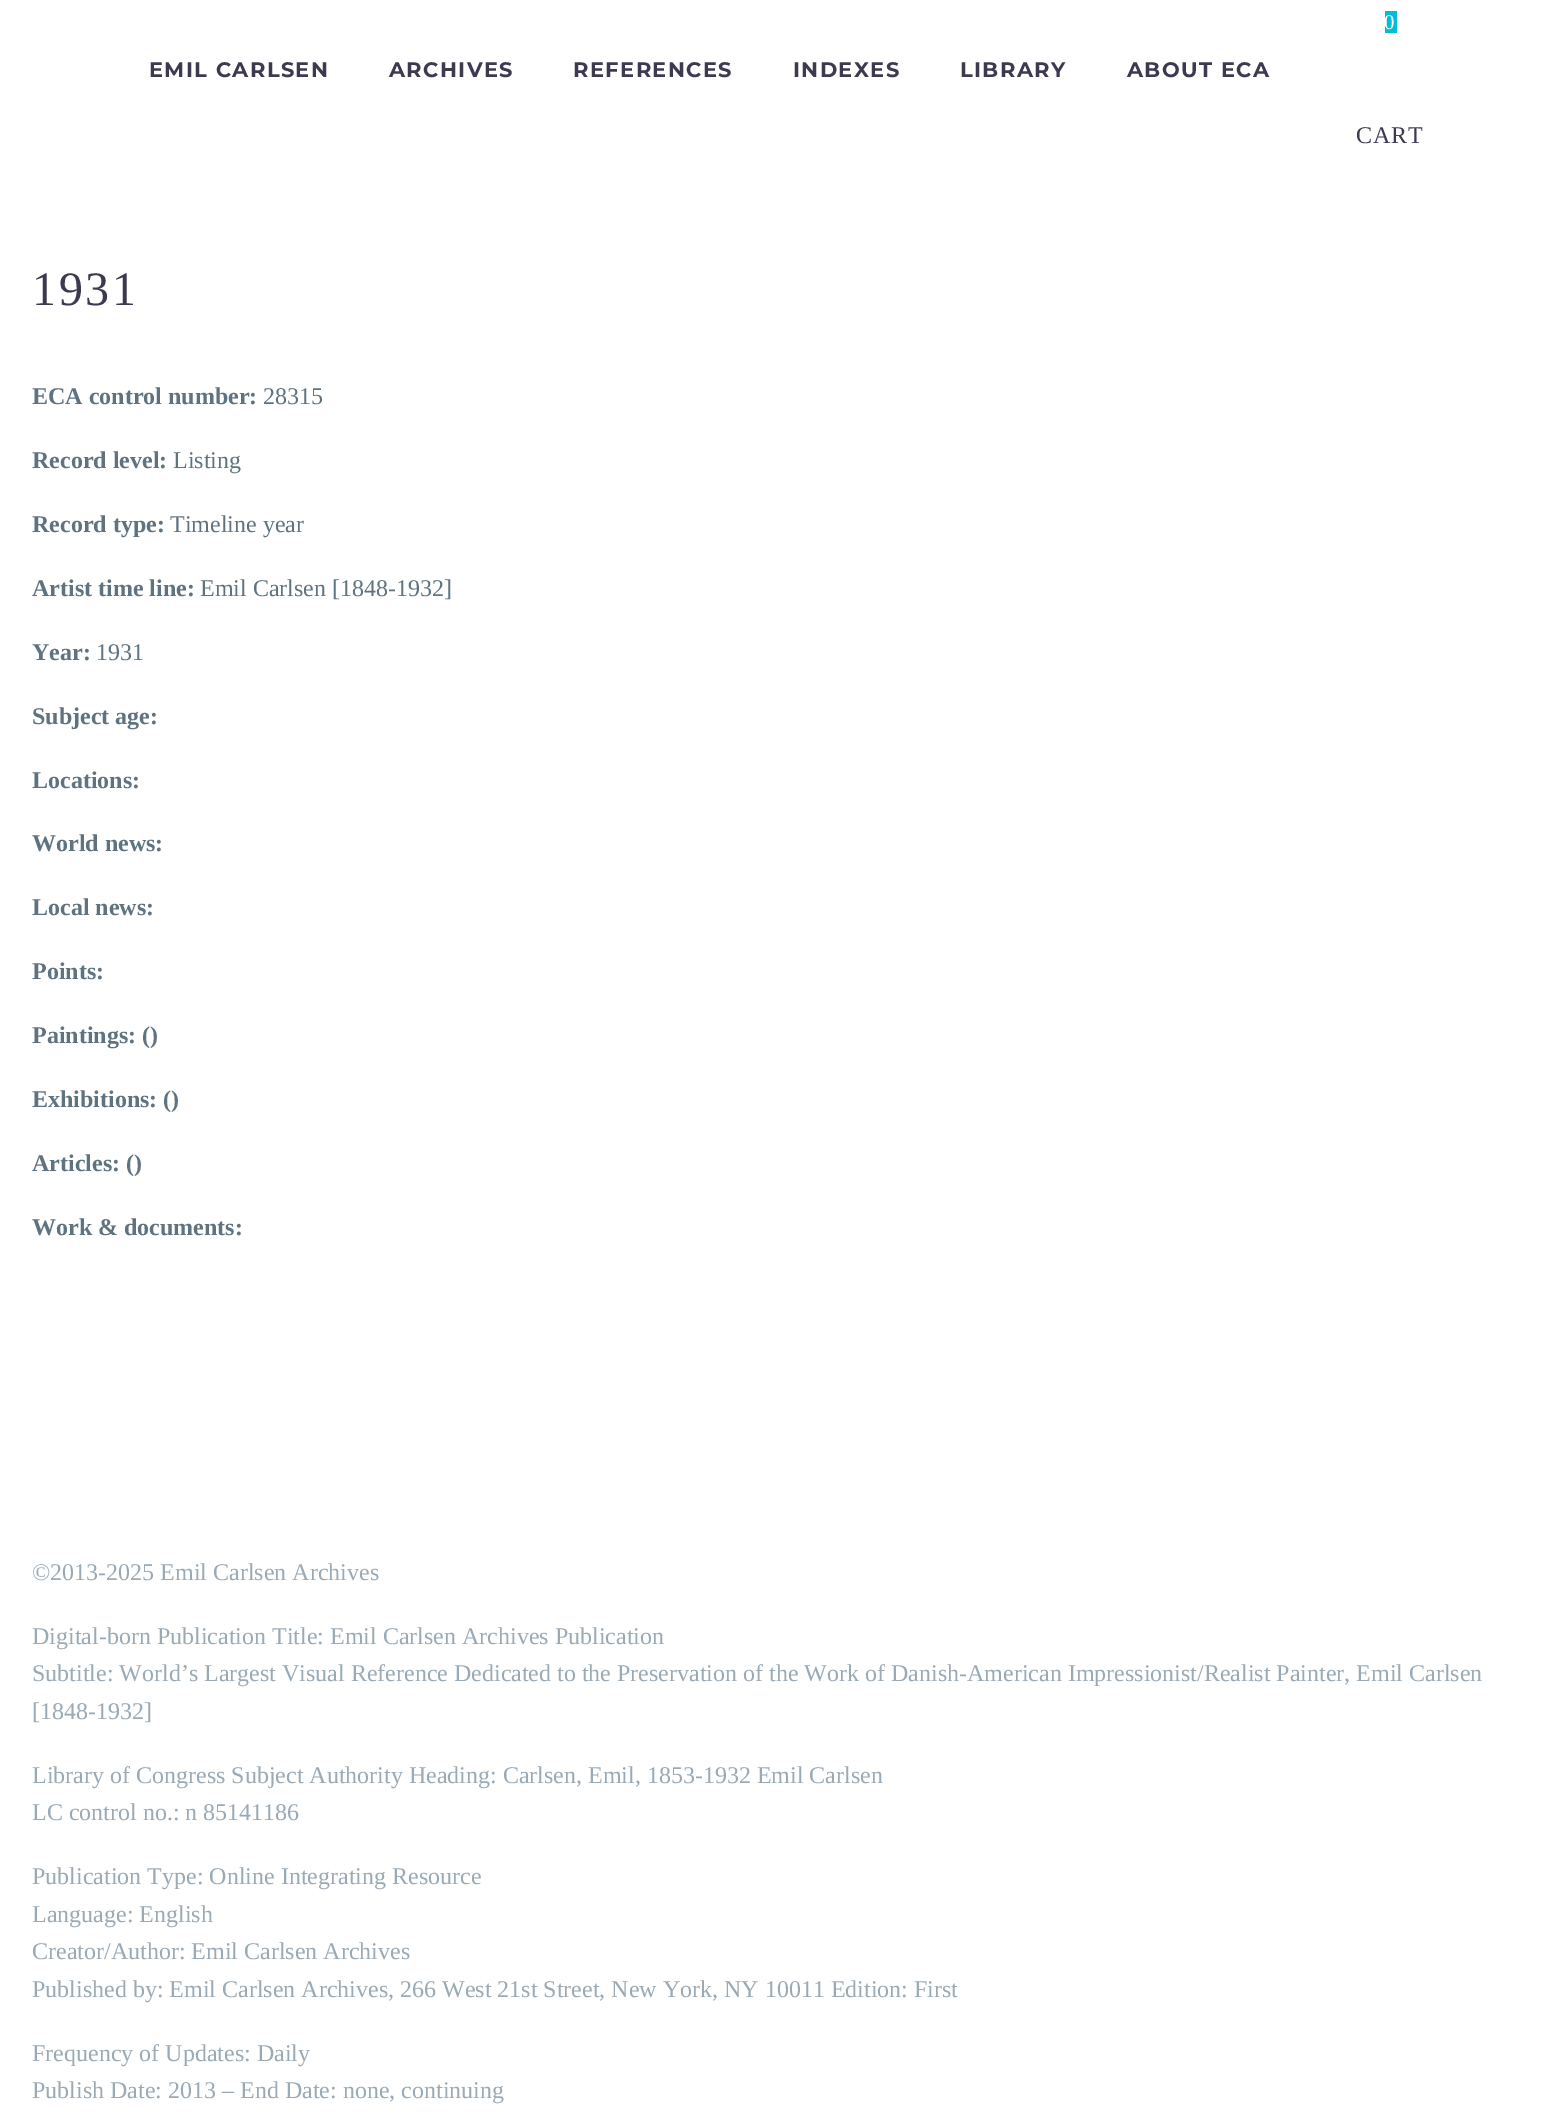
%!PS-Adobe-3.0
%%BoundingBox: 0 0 1559 2125
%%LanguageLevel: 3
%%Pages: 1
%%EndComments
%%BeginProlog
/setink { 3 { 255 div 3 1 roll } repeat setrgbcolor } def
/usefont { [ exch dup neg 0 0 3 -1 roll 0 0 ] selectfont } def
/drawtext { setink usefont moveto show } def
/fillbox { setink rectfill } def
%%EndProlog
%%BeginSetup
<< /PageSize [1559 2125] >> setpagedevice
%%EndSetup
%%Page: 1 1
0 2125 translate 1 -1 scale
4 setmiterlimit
0 0 1559 2125 255 255 255 fillbox
/Montserrat-Bold 21 usefont
60 57 80 setink
149 77 moveto 1.4 0 (EMIL CARLSEN) ashow
389 77 moveto 1.4 0 (ARCHIVES) ashow
573 77 moveto 1.4 0 (REFERENCES) ashow
793 77 moveto 1.4 0 (INDEXES) ashow
960 77 moveto 1.4 0 (LIBRARY) ashow
1127 77 moveto 1.4 0 (ABOUT ECA) ashow
1385 11 12 22 0 188 212 fillbox
/LiberationSerif-Regular 21 usefont
255 255 255 setink
1384 29 moveto 1.4 0 (0) ashow
/LiberationSerif-Regular 24 usefont
60 57 80 setink
1356 143 moveto 1 0 (CART) ashow
/LiberationSerif-Regular 48 usefont
32 305 moveto 2.5 0 (1931) ashow
(ECA control number:) 32 404 /LiberationSerif-Bold 24 95 114 127 drawtext
(28315) 263 404 /LiberationSerif-Regular 24 95 114 127 drawtext
(Record level:) 32 468 /LiberationSerif-Bold 24 95 114 127 drawtext
(Listing) 173 468 /LiberationSerif-Regular 24 95 114 127 drawtext
(Record type:) 32 532 /LiberationSerif-Bold 24 95 114 127 drawtext
(Timeline year) 170 532 /LiberationSerif-Regular 24 95 114 127 drawtext
(Artist time line:) 32 596 /LiberationSerif-Bold 24 95 114 127 drawtext
(Emil Carlsen [1848-1932]) 200 596 /LiberationSerif-Regular 24 95 114 127 drawtext
(Year:) 32 660 /LiberationSerif-Bold 24 95 114 127 drawtext
(1931) 96 660 /LiberationSerif-Regular 24 95 114 127 drawtext
(Subject age:) 32 724 /LiberationSerif-Bold 24 95 114 127 drawtext
(Locations:) 32 788 /LiberationSerif-Bold 24 95 114 127 drawtext
(World news:) 32 851 /LiberationSerif-Bold 24 95 114 127 drawtext
(Local news:) 32 915 /LiberationSerif-Bold 24 95 114 127 drawtext
(Points:) 32 979 /LiberationSerif-Bold 24 95 114 127 drawtext
(Paintings: \(\)) 32 1043 /LiberationSerif-Bold 24 95 114 127 drawtext
(Exhibitions: \(\)) 32 1107 /LiberationSerif-Bold 24 95 114 127 drawtext
(Articles: \(\)) 32 1171 /LiberationSerif-Bold 24 95 114 127 drawtext
(Work & documents:) 32 1235 /LiberationSerif-Bold 24 95 114 127 drawtext
(©2013-2025 Emil Carlsen Archives) 32 1580 /LiberationSerif-Regular 24 153 169 181 drawtext
(Digital-born Publication Title: Emil Carlsen Archives Publication) 32 1644 /LiberationSerif-Regular 24 153 169 181 drawtext
(Subtitle: World’s Largest Visual Reference Dedicated to the Preservation of the Work of Danish-American Impressionist/Realist Painter, Emil Carlsen) 32 1681 /LiberationSerif-Regular 24 153 169 181 drawtext
([1848-1932]) 32 1719 /LiberationSerif-Regular 24 153 169 181 drawtext
(Library of Congress Subject Authority Heading: Carlsen, Emil, 1853-1932 Emil Carlsen) 32 1783 /LiberationSerif-Regular 24 153 169 181 drawtext
(LC control no.: n 85141186) 32 1820 /LiberationSerif-Regular 24 153 169 181 drawtext
(Publication Type: Online Integrating Resource) 32 1884 /LiberationSerif-Regular 24 153 169 181 drawtext
(Language: English) 32 1922 /LiberationSerif-Regular 24 153 169 181 drawtext
(Creator/Author: Emil Carlsen Archives) 32 1959 /LiberationSerif-Regular 24 153 169 181 drawtext
(Published by: Emil Carlsen Archives, 266 West 21st Street, New York, NY 10011 Edition: First) 32 1997 /LiberationSerif-Regular 24 153 169 181 drawtext
(Frequency of Updates: Daily) 32 2061 /LiberationSerif-Regular 24 153 169 181 drawtext
(Publish Date: 2013 – End Date: none, continuing) 32 2098 /LiberationSerif-Regular 24 153 169 181 drawtext
showpage
%%EOF
